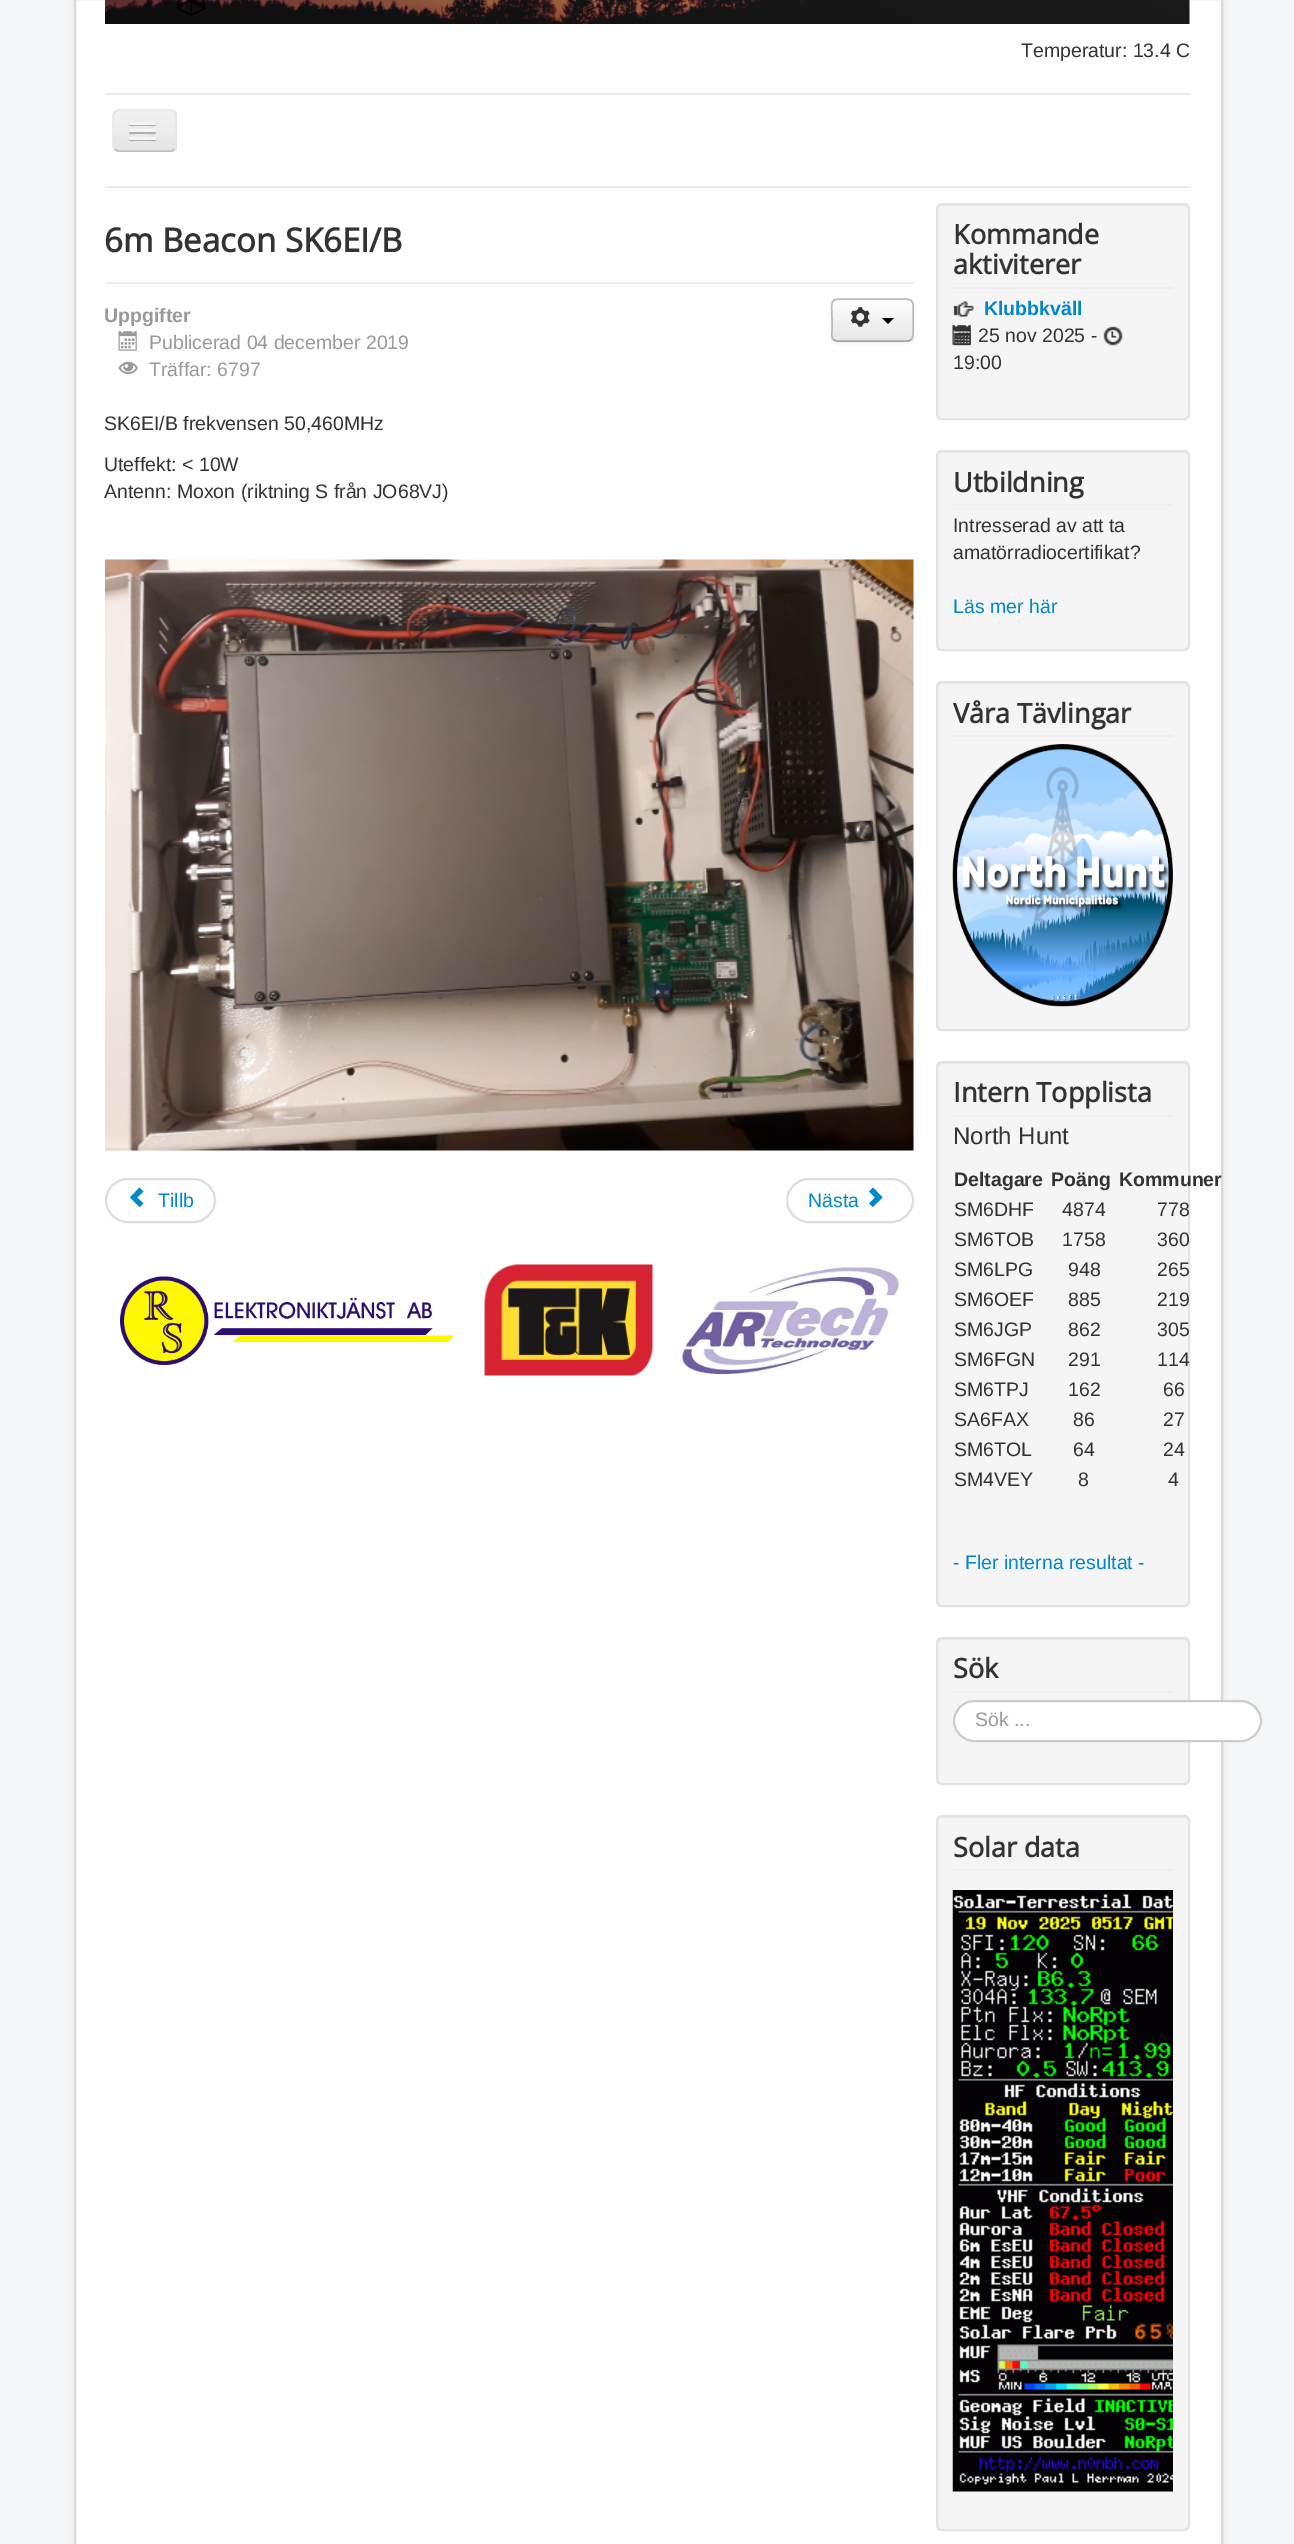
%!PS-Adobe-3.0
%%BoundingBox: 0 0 1294 2544
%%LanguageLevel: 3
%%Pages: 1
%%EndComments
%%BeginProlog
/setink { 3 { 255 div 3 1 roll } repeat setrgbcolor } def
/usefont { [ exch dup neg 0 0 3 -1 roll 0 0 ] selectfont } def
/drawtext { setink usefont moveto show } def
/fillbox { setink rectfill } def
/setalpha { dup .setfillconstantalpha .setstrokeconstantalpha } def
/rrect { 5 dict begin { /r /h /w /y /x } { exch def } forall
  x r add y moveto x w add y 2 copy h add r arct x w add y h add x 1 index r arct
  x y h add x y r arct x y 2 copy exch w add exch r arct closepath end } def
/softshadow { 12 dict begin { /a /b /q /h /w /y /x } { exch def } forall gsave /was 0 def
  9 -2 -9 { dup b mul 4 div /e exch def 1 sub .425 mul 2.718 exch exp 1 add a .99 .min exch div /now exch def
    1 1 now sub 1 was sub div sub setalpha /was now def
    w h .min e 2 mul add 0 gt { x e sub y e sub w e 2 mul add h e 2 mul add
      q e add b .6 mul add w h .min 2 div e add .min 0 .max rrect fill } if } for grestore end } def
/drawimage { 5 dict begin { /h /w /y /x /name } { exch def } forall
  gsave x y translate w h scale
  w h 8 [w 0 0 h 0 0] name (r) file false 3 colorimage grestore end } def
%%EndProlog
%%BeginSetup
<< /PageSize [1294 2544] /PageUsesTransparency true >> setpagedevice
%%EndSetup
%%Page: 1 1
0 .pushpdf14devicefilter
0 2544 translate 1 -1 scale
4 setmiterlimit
0 0 1294 2544 244 246 247 fillbox
0 0 0 setink
74 -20 1149 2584 6 4.5 0.05 softshadow
255 255 255 setink
75 -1 moveto 1222 -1 lineto 1222 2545 lineto 75 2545 lineto closepath gsave fill grestore
217 217 217 setink
2 setlinewidth
stroke
(assets/img1.rgb) 105 0 1085 24 drawimage
(Temperatur: 13.4 C) 1021 57 /LiberationSans-Regular 19.5 51 51 51 drawtext
105 93 1086 2 236 236 236 fillbox
105 186 1086 2 236 236 236 fillbox
237 237 237 setink
113 110 64 42 6 rrect fill
gsave
113 110 64 42 6 rrect clip newpath
gsave 113 111 moveto 177 111 lineto 177 150 lineto 113 150 lineto closepath clip newpath
<< /ShadingType 2 /ColorSpace /DeviceRGB /Coords [145 111 145 150] /Extend [true true] /Function << /FunctionType 2 /Domain [0 1] /C0 [0.949 0.949 0.949] /C1 [0.902 0.902 0.902] /N 1 >> >> shfill grestore
grestore
191 191 191 setink
1.5 setlinewidth
174.5 149 moveto 173.5 150 172.5 151 171 151 curveto 118.5 151 lineto 117 151 116 150 115 149 curveto stroke
230 230 230 setink
115 149 moveto 114 148 113 147 113 145.5 curveto 113 115.5 lineto 113 114 114 113 115 112 curveto 116 111 117 110 118.5 110 curveto 171 110 lineto 172.5 110 173.5 111 174.5 112 curveto 175.5 113 176 114 176 115.5 curveto 176 145.5 lineto 176 147 175.5 148 174.5 149 curveto stroke
179 179 179 setink
129 123.5 moveto 127.5 127 134.5 126 134.5 126 curveto 150.5 126 lineto 150.5 126 157.5 127 156 123.5 curveto 155.5 124 155 124.5 154.5 124.5 curveto 130.5 124.5 lineto 130 124.5 129.5 124 129 123.5 curveto closepath fill
245 245 245 setink
129 122 27 3 1.5 rrect fill
176 176 176 setink
129.5 131.5 moveto 129 133 lineto 129.5 135 134 134 134.5 134 curveto 150.5 134 lineto 151 134 155.5 135 156 133 curveto 155.5 131.5 lineto 154.5 132 lineto 130.5 132 lineto closepath fill
245 245 245 setink
129 129 27 3 1.5 rrect fill
175 175 175 setink
129 139 moveto 127.5 142 134.5 141 134.5 141 curveto 150.5 141 lineto 150.5 141 157.5 142 156 139 curveto 155.5 139 155 139.5 154.5 139.5 curveto 130.5 139.5 lineto 130 139.5 129.5 139 129 139 curveto closepath fill
245 245 245 setink
129 137 27 3 1.5 rrect fill
105 282 809 2 238 238 238 fillbox
(6m Beacon SK6EI/B) 104 252 /OpenSans-Bold 33 51 51 51 drawtext
(Uppgifter) 104 322 /LiberationSans-Bold 19.5 153 153 153 drawtext
(assets/img2.rgb) 118 331 19 20 drawimage
(Publicerad 04 december 2019) 149 349 /LiberationSans-Regular 19.5 153 153 153 drawtext
(assets/img3.rgb) 118 361 20 14 drawimage
(Träffar: 6797) 149 376 /LiberationSans-Regular 19.5 153 153 153 drawtext
0 0 0 setink
831 300 83 44 6 1.5 0.05 softshadow
245 245 245 setink
831 299 83 43 6 rrect fill
gsave
831 299 83 43 6 rrect clip newpath
gsave 831 300 moveto 914 300 lineto 914 341 lineto 831 341 lineto closepath clip newpath
<< /ShadingType 2 /ColorSpace /DeviceRGB /Coords [872 300 872 341] /Extend [true true] /Function << /FunctionType 2 /Domain [0 1] /C0 [1 1 1] /C1 [0.902 0.902 0.902] /N 1 >> >> shfill grestore
grestore
162 162 162 setink
911 339.5 moveto 910 340.5 909 341 907.5 341 curveto 837 341 lineto 835.5 341 834.5 340.5 833.5 339.5 curveto stroke
187 187 187 setink
833.5 339.5 moveto 831 337.5 832 333.5 832 331 curveto 832 320 lineto 832 298.5 828 299 849 299 curveto 896 299 lineto 916.5 299 913 298.5 913 320 curveto 913 331 lineto 913 333.5 913.5 337.5 911 339.5 curveto stroke
(assets/img4.rgb) 850 307 20 20 drawimage
0 0 0 setink
882 318 moveto 894 318 lineto 888 324 lineto closepath fill
(SK6EI/B frekvensen 50,460MHz) 104 430 /LiberationSans-Regular 19.5 51 51 51 drawtext
(Uteffekt: < 10W) 104 471 /LiberationSans-Regular 19.5 51 51 51 drawtext
(Antenn: Moxon \(riktning S från JO68VJ\)) 104 498 /LiberationSans-Regular 19.5 51 51 51 drawtext
(assets/img5.rgb) 105 559 809 592 drawimage
221 221 221 setink
2 setlinewidth
106 1179 109 43 21.5 rrect stroke
0 136 204 setink
139.5 1207 moveto 130 1197.5 lineto 139.5 1187.5 lineto 143.5 1191.5 lineto 137 1197.5 lineto 143.5 1203.5 lineto closepath fill
(Tillb) 158 1207 /LiberationSans-Regular 19.5 0 136 204 drawtext
221 221 221 setink
787 1179 126 43 21.5 rrect stroke
(Nästa) 808 1207 /LiberationSans-Regular 19.5 0 136 204 drawtext
873 1187.5 moveto 882.5 1197.5 lineto 873 1207 lineto 869 1203.5 lineto 875 1197.5 lineto 869 1191.5 lineto closepath fill
(assets/img6.rgb) 120 1276 335 89 drawimage
(assets/img7.rgb) 484 1264 169 112 drawimage
(assets/img8.rgb) 682 1267 217 107 drawimage
245 245 245 setink
936 203 254 217 6 rrect fill
233 233 233 setink
942 206 moveto 1184 206 lineto 1186 206 1188 208 1188 210 curveto 1188 209 lineto 1188 206 1186 204 1183 204 curveto 943 204 lineto 940 204 938 206 938 209 curveto 938 210 lineto 938 208 940 206 942 206 curveto closepath fill
227 227 227 setink
937 204 252 215 5 rrect stroke
953 287 220 2 238 238 238 fillbox
(Kommande) 953 244 /OpenSans-Bold 27 51 51 51 drawtext
(aktiviterer) 953 274 /OpenSans-Bold 27 51 51 51 drawtext
(assets/img9.rgb) 953 301 21 16 drawimage
(Klubbkväll) 984 315 /LiberationSans-Bold 19.5 0 136 204 drawtext
(assets/img10.rgb) 953 326 18 20 drawimage
(assets/img11.rgb) 952 325 19 20 drawimage
(25 nov 2025 -) 978 342 /LiberationSans-Regular 19.5 51 51 51 drawtext
(assets/img12.rgb) 1103 326 20 20 drawimage
(19:00) 953 369 /LiberationSans-Regular 19.5 51 51 51 drawtext
245 245 245 setink
936 450 254 201 6 rrect fill
233 233 233 setink
942 453 moveto 1184 453 lineto 1186 453 1188 455 1188 458 curveto 1188 457 lineto 1188 454 1186 452 1183 452 curveto 943 452 lineto 940 452 938 454 938 457 curveto 938 458 lineto 938 455 940 453 942 453 curveto closepath fill
227 227 227 setink
937 451 252 199 5 rrect stroke
953 504 220 2 238 238 238 fillbox
(Utbildning) 953 492 /OpenSans-Bold 27 51 51 51 drawtext
(Intresserad av att ta) 953 532 /LiberationSans-Regular 19.5 51 51 51 drawtext
(amatörradiocertifikat?) 953 559 /LiberationSans-Regular 19.5 51 51 51 drawtext
(Läs mer här) 953 613 /LiberationSans-Regular 19.5 0 136 204 drawtext
245 245 245 setink
936 681 254 350 6 rrect fill
233 233 233 setink
942 684 moveto 1184 684 lineto 1186 684 1188 686 1188 688 curveto 1188 685 1186 683 1183 683 curveto 943 683 lineto 940 683 938 685 938 688 curveto 938 686 940 684 942 684 curveto closepath fill
227 227 227 setink
937 682 252 348 5 rrect stroke
953 735 220 2 238 238 238 fillbox
(Våra Tävlingar) 953 723 /OpenSans-Bold 27 51 51 51 drawtext
(assets/img13.rgb) 952 744 221 263 drawimage
245 245 245 setink
936 1061 254 546 6 rrect fill
233 233 233 setink
942 1064 moveto 1184 1064 lineto 1186 1064 1188 1066 1188 1068 curveto 1188 1067 lineto 1188 1064 1186 1062 1183 1062 curveto 943 1062 lineto 940 1062 938 1064 938 1067 curveto 938 1068 lineto 938 1066 940 1064 942 1064 curveto closepath fill
227 227 227 setink
937 1062 252 544 5 rrect stroke
953 1115 220 2 238 238 238 fillbox
(Intern Topplista) 953 1102 /OpenSans-Bold 27 51 51 51 drawtext
(North Hunt) 953 1144 /LiberationSans-Regular 24 51 51 51 drawtext
(Deltagare) 954 1186 /LiberationSans-Bold 19.5 51 51 51 drawtext
(Poäng) 1051 1186 /LiberationSans-Bold 19.5 51 51 51 drawtext
(Kommuner) 1119 1186 /LiberationSans-Bold 19.5 51 51 51 drawtext
(SM6DHF) 954 1216 /LiberationSans-Regular 19.5 51 51 51 drawtext
(4874) 1062 1216 /LiberationSans-Regular 19.5 51 51 51 drawtext
(778) 1157 1216 /LiberationSans-Regular 19.5 51 51 51 drawtext
(SM6TOB) 954 1246 /LiberationSans-Regular 19.5 51 51 51 drawtext
(1758) 1062 1246 /LiberationSans-Regular 19.5 51 51 51 drawtext
(360) 1157 1246 /LiberationSans-Regular 19.5 51 51 51 drawtext
(SM6LPG) 954 1276 /LiberationSans-Regular 19.5 51 51 51 drawtext
(948) 1068 1276 /LiberationSans-Regular 19.5 51 51 51 drawtext
(265) 1157 1276 /LiberationSans-Regular 19.5 51 51 51 drawtext
(SM6OEF) 954 1306 /LiberationSans-Regular 19.5 51 51 51 drawtext
(885) 1068 1306 /LiberationSans-Regular 19.5 51 51 51 drawtext
(219) 1157 1306 /LiberationSans-Regular 19.5 51 51 51 drawtext
(SM6JGP) 954 1336 /LiberationSans-Regular 19.5 51 51 51 drawtext
(862) 1068 1336 /LiberationSans-Regular 19.5 51 51 51 drawtext
(305) 1157 1336 /LiberationSans-Regular 19.5 51 51 51 drawtext
(SM6FGN) 954 1366 /LiberationSans-Regular 19.5 51 51 51 drawtext
(291) 1068 1366 /LiberationSans-Regular 19.5 51 51 51 drawtext
(114) 1157 1366 /LiberationSans-Regular 19.5 51 51 51 drawtext
(SM6TPJ) 954 1396 /LiberationSans-Regular 19.5 51 51 51 drawtext
(162) 1068 1396 /LiberationSans-Regular 19.5 51 51 51 drawtext
(66) 1163 1396 /LiberationSans-Regular 19.5 51 51 51 drawtext
(SA6FAX) 954 1426 /LiberationSans-Regular 19.5 51 51 51 drawtext
(86) 1073 1426 /LiberationSans-Regular 19.5 51 51 51 drawtext
(27) 1163 1426 /LiberationSans-Regular 19.5 51 51 51 drawtext
(SM6TOL) 954 1456 /LiberationSans-Regular 19.5 51 51 51 drawtext
(64) 1073 1456 /LiberationSans-Regular 19.5 51 51 51 drawtext
(24) 1163 1456 /LiberationSans-Regular 19.5 51 51 51 drawtext
(SM4VEY) 954 1486 /LiberationSans-Regular 19.5 51 51 51 drawtext
(8) 1078 1486 /LiberationSans-Regular 19.5 51 51 51 drawtext
(4) 1168 1486 /LiberationSans-Regular 19.5 51 51 51 drawtext
(- Fler interna resultat -) 953 1569 /LiberationSans-Regular 19.5 0 136 204 drawtext
245 245 245 setink
936 1637 254 148 6 rrect fill
233 233 233 setink
942 1640 moveto 1184 1640 lineto 1186 1640 1188 1642 1188 1644 curveto 1188 1643 lineto 1188 1640 1186 1638 1183 1638 curveto 943 1638 lineto 940 1638 938 1640 938 1643 curveto 938 1644 lineto 938 1642 940 1640 942 1640 curveto closepath fill
227 227 227 setink
937 1638 252 146 5 rrect stroke
953 1691 220 2 238 238 238 fillbox
(Sök) 953 1678 /OpenSans-Bold 27 51 51 51 drawtext
255 255 255 setink
953 1700 309 42 21 rrect fill
236 236 236 setink
974 1702 moveto 1240 1702 lineto 1251 1702 1260 1711 1260 1721 curveto 1260 1710 1251 1701 1240 1701 curveto 974 1701 lineto 963 1701 954 1710 954 1721 curveto 954 1711 963 1702 974 1702 curveto closepath fill
204 204 204 setink
954 1701 307 40 20 rrect stroke
(Sök ...) 975 1726 /LiberationSans-Regular 19.5 153 153 153 drawtext
245 245 245 setink
936 1815 254 716 6 rrect fill
233 233 233 setink
942 1818 moveto 1184 1818 lineto 1186 1818 1188 1820 1188 1822 curveto 1188 1819 1186 1817 1183 1817 curveto 943 1817 lineto 940 1817 938 1819 938 1822 curveto 938 1820 940 1818 942 1818 curveto closepath fill
227 227 227 setink
937 1816 252 714 5 rrect stroke
953 1869 220 2 238 238 238 fillbox
(Solar data) 953 1857 /OpenSans-Bold 27 51 51 51 drawtext
(assets/img14.rgb) 952 1890 221 602 drawimage
.poppdf14devicefilter showpage
%%EOF
